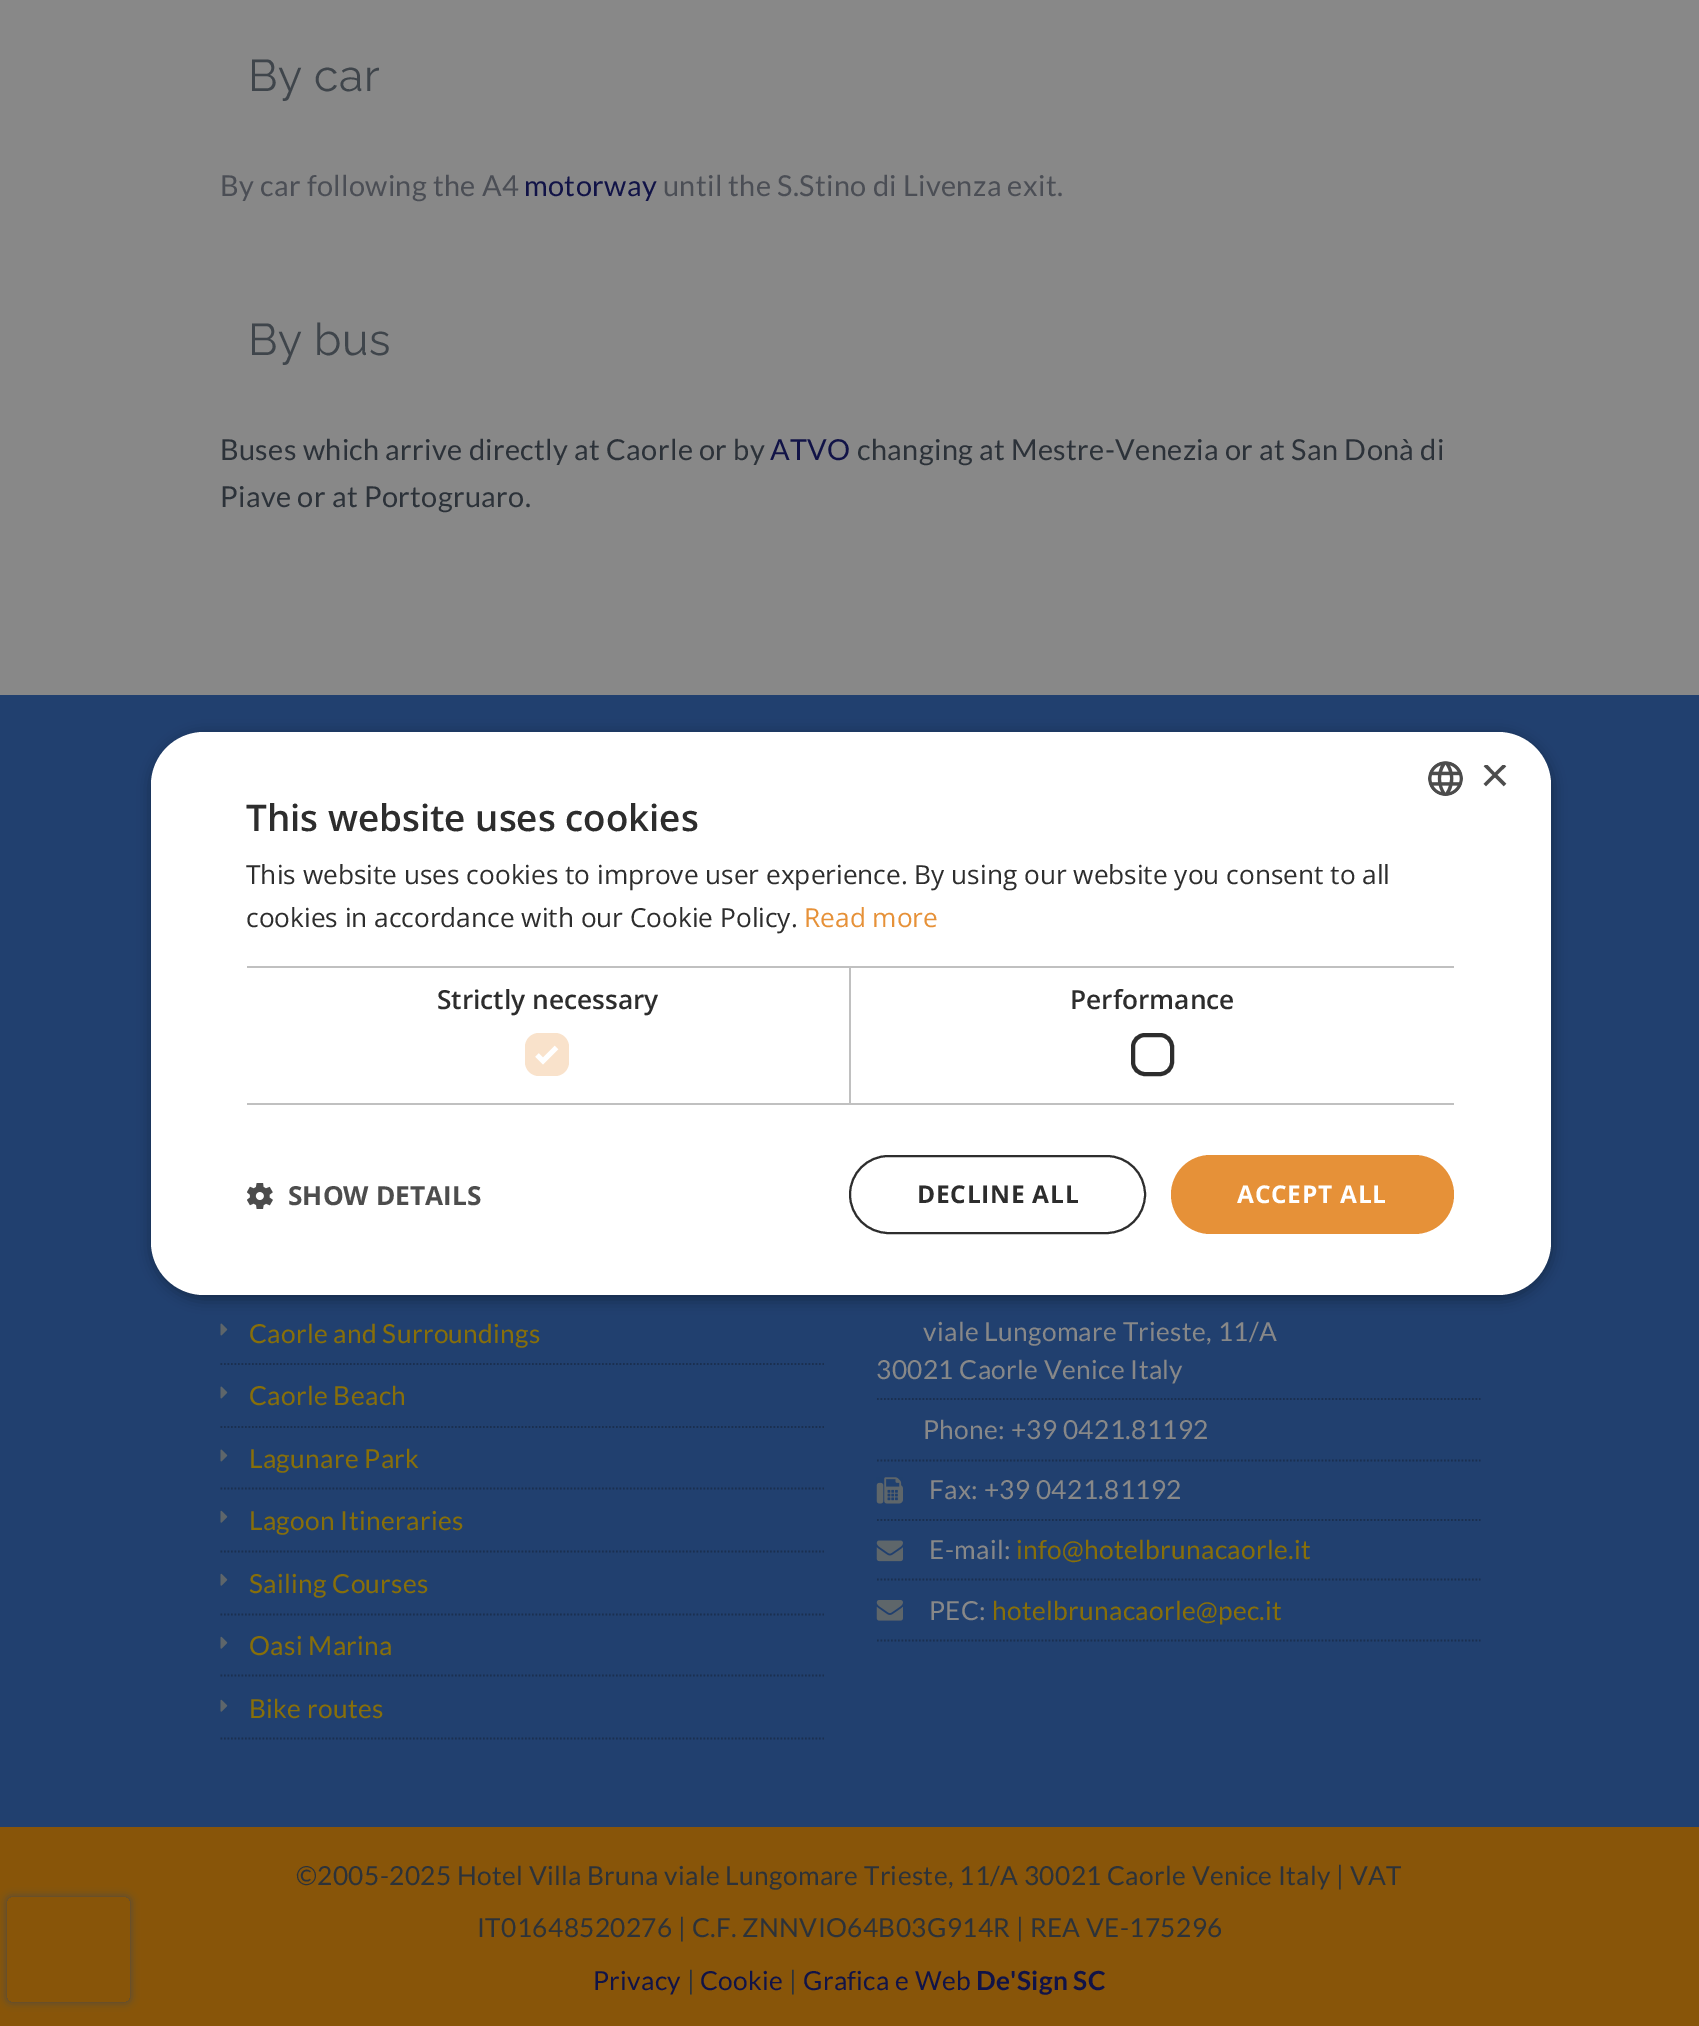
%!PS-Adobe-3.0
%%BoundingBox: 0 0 1699 2026
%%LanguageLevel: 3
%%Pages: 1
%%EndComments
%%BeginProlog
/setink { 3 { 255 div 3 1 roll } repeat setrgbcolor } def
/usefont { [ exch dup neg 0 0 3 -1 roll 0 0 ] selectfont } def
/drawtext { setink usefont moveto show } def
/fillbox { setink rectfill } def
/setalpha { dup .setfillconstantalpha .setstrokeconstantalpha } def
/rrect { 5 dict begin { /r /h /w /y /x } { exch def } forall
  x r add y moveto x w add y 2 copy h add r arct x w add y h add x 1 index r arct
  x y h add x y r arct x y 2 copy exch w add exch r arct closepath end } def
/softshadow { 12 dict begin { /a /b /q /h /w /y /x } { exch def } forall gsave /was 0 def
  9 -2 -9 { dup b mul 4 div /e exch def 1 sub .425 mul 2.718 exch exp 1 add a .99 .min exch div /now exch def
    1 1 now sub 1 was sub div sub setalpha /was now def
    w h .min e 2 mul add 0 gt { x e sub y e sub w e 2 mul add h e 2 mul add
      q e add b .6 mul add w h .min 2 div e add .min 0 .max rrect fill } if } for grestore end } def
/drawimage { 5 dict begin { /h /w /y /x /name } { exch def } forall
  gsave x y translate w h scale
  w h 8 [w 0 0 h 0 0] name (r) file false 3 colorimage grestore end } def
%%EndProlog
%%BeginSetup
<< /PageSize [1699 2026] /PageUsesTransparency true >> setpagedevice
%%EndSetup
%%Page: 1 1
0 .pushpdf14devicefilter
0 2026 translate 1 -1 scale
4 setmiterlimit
0 0 1699 2026 136 136 136 fillbox
/Raleway-Regular 44.5 usefont
63 69 75 setink
248 91 moveto 0.35 0 (By car) ashow
/Lato-Regular 28.9 usefont
75 78 85 setink
220 196 moveto 0.35 0 (By car following the A4) ashow
17 19 71 setink
524 196 moveto 0.35 0 (motorway) ashow
75 78 85 setink
663 196 moveto 0.35 0 (until the S.Stino di Livenza exit.) ashow
/Raleway-Regular 44.5 usefont
63 69 75 setink
248 355 moveto 0.35 0 (By bus) ashow
/Lato-Regular 28.9 usefont
44 50 57 setink
220 460 moveto 0.35 0 (Buses which arrive directly at Caorle or by) ashow
17 19 71 setink
770 460 moveto 0.35 0 (ATVO) ashow
44 50 57 setink
857 460 moveto 0.35 0 (changing at Mestre-Venezia or at San Donà di) ashow
220 507 moveto 0.35 0 (Piave or at Portogruaro.) ashow
0 695 1699 1132 33 64 111 fillbox
26 47 80 setink
1.8 setlinewidth
[1.75 1.75] 0 setdash
220.5 1364 moveto 824 1364 lineto stroke
(assets/img1.rgb) 220 1323 8 13 drawimage
/Lato-Regular 26.25 usefont
136 111 9 setink
249 1343 moveto 0.35 0 (Caorle and Surroundings) ashow
26 47 80 setink
220.5 1427 moveto 824 1427 lineto stroke
(assets/img1.rgb) 220 1386 8 13 drawimage
136 111 9 setink
249 1405 moveto 0.35 0 (Caorle Beach) ashow
26 47 80 setink
220.5 1488.5 moveto 824 1488.5 lineto stroke
(assets/img1.rgb) 220 1449 8 13 drawimage
136 111 9 setink
249 1468 moveto 0.35 0 (Lagunare Park) ashow
26 47 80 setink
220.5 1551.5 moveto 824 1551.5 lineto stroke
(assets/img2.rgb) 220 1510 8 13 drawimage
136 111 9 setink
249 1530 moveto 0.35 0 (Lagoon Itineraries) ashow
26 47 80 setink
220.5 1614.5 moveto 824 1614.5 lineto stroke
(assets/img2.rgb) 220 1573 8 13 drawimage
136 111 9 setink
249 1593 moveto 0.35 0 (Sailing Courses) ashow
26 47 80 setink
220.5 1675.5 moveto 824 1675.5 lineto stroke
(assets/img2.rgb) 220 1636 8 13 drawimage
136 111 9 setink
249 1655 moveto 0.35 0 (Oasi Marina) ashow
26 47 80 setink
220.5 1738.5 moveto 824 1738.5 lineto stroke
(assets/img2.rgb) 220 1699 8 13 drawimage
136 111 9 setink
249 1718 moveto 0.35 0 (Bike routes) ashow
26 47 80 setink
877 1399 moveto 1480.5 1399 lineto stroke
136 136 136 setink
923 1341 moveto 0.35 0 (viale Lungomare Trieste, 11/A) ashow
876 1379 moveto 0.35 0 (30021 Caorle Venice Italy) ashow
26 47 80 setink
877 1460.5 moveto 1480.5 1460.5 lineto stroke
136 136 136 setink
923 1439 moveto 0.35 0 (Phone: +39 0421.81192) ashow
26 47 80 setink
877 1520 moveto 1480.5 1520 lineto stroke
(assets/img3.rgb) 876 1477 27 27 drawimage
136 136 136 setink
929 1499 moveto 0.35 0 (Fax: +39 0421.81192) ashow
26 47 80 setink
877 1579.5 moveto 1480.5 1579.5 lineto stroke
(assets/img4.rgb) 876 1540 27 22 drawimage
136 136 136 setink
929 1559 moveto 0.35 0 (E-mail:) ashow
136 111 9 setink
1016 1559 moveto 0.35 0 (info@hotelbrunacaorle.it) ashow
26 47 80 setink
877 1640.5 moveto 1480.5 1640.5 lineto stroke
(assets/img5.rgb) 876 1600 27 21 drawimage
136 136 136 setink
929 1620 moveto 0.35 0 (PEC:) ashow
136 111 9 setink
992 1620 moveto 0.35 0 (hotelbrunacaorle@pec.it) ashow
0 1827 1699 199 136 85 9 fillbox
44 50 57 setink
296 1885 moveto 0.35 0 (©2005-2025 Hotel Villa Bruna viale Lungomare Trieste, 11/A 30021 Caorle Venice Italy | VAT) ashow
477 1937 moveto 0.35 0 (IT01648520276 | C.F. ZNNVIO64B03G914R | REA VE-175296) ashow
17 19 71 setink
593 1990 moveto 0.35 0 (Privacy) ashow
44 50 57 setink
687 1990 moveto 0.35 0 (|) ashow
17 19 71 setink
700 1990 moveto 0.35 0 (Cookie) ashow
44 50 57 setink
789 1990 moveto 0.35 0 (|) ashow
17 19 71 setink
803 1990 moveto 0.35 0 (Grafica e Web) ashow
/Lato-Bold 26.25 usefont
976 1990 moveto 0.35 0 (De'Sign SC) ashow
0 0 0 setink
152 735 1400 564 53 7 0.35 softshadow
255 255 255 setink
151 732 1400 563 53 rrect fill
(assets/img6.rgb) 1428 761 35 35 drawimage
gsave
1481 765 26 26 rectclip
(×) 1480 792 /LiberationSans-Regular 51 77 77 77 drawtext
grestore
(This website uses cookies) 246 831 /OpenSans-SemiBold 36.75 45 45 45 drawtext
(This website uses cookies to improve user experience. By using our website you consent to all) 246 884 /OpenSans-Regular 26.25 45 45 45 drawtext
(cookies in accordance with our Cookie Policy.) 246 927 /OpenSans-Regular 26.25 45 45 45 drawtext
(Read more) 804 927 /OpenSans-Regular 26.25 230 145 56 drawtext
247 966 1207 2 192 192 192 fillbox
849 966 2 138 192 192 192 fillbox
247 1103 1207 2 192 192 192 fillbox
(Strictly necessary) 437 1009 /OpenSans-SemiBold 26.25 45 45 45 drawtext
249 226 203 setink
525 1033 44 43 14 rrect fill
255 255 255 setink
4.6 setlinewidth
[] 0 setdash
537 1055 moveto 543 1061 lineto 556.5 1047.5 lineto stroke
(Performance) 1070 1009 /OpenSans-SemiBold 26.25 45 45 45 drawtext
4 setlinewidth
1133 1035 39 39 12 rrect stroke
(assets/img7.rgb) 247 1183 26 26 drawimage
(SHOW DETAILS) 288 1205 /OpenSans-Bold 26.25 77 77 77 drawtext
45 45 45 setink
2 setlinewidth
850 1156 295 77 38.5 rrect stroke
/OpenSans-Bold 24.5 usefont
917 1203 moveto 0.75 0 (DECLINE ALL) ashow
230 145 56 setink
1171 1155 283 79 39.5 rrect fill
255 255 255 setink
1237 1203 moveto 0.75 0 (ACCEPT ALL) ashow
gsave
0 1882 moveto 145 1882 lineto 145 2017 lineto 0 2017 lineto closepath 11 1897 moveto 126 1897 lineto 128 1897 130 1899 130 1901 curveto 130 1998 lineto 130 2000 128 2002 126 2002 curveto 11 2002 lineto 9 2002 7 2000 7 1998 curveto 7 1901 lineto 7 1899 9 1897 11 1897 curveto closepath eoclip newpath
73 73 73 setink
7 1897 123 105 4 4.5 1 softshadow
grestore
.poppdf14devicefilter showpage
%%EOF
